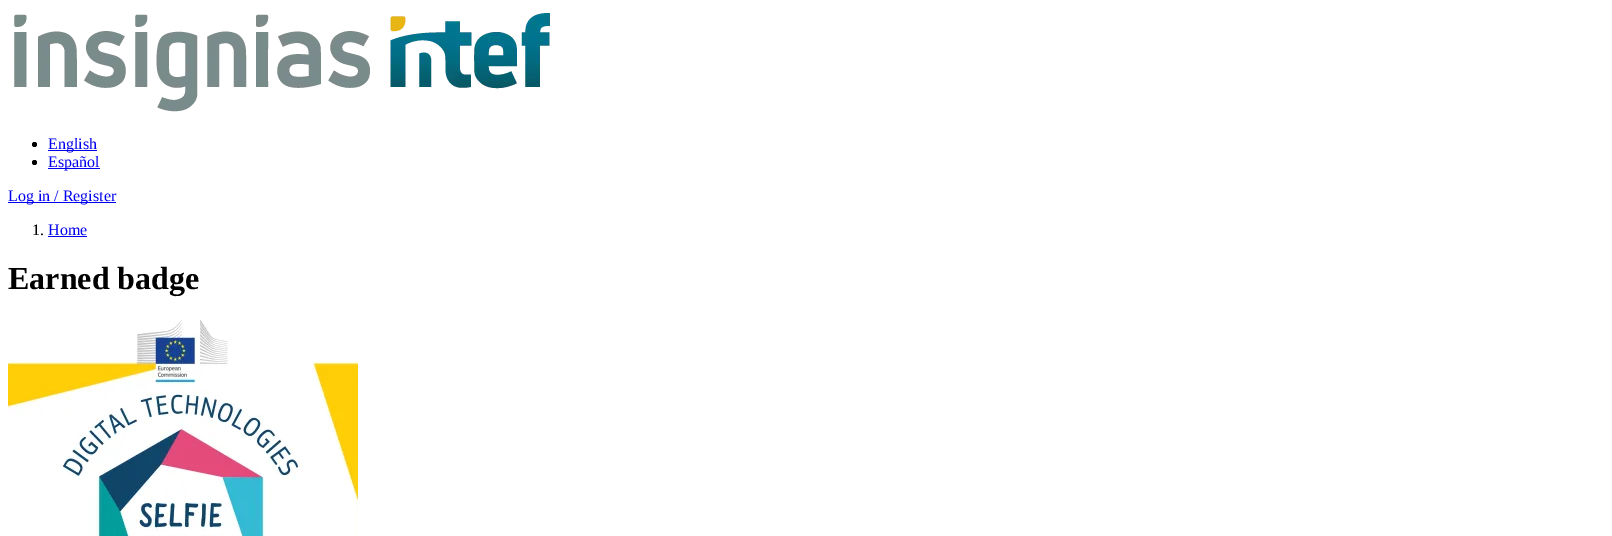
%!PS-Adobe-3.0
%%BoundingBox: 0 0 1612 536
%%LanguageLevel: 3
%%Pages: 1
%%EndComments
%%BeginProlog
/setink { 3 { 255 div 3 1 roll } repeat setrgbcolor } def
/usefont { [ exch dup neg 0 0 3 -1 roll 0 0 ] selectfont } def
/drawtext { setink usefont moveto show } def
/fillbox { setink rectfill } def
/disc { newpath 0 360 arc closepath } def
/drawimage { 5 dict begin { /h /w /y /x /name } { exch def } forall
  gsave x y translate w h scale
  w h 8 [w 0 0 h 0 0] name (r) file false 3 colorimage grestore end } def
%%EndProlog
%%BeginSetup
<< /PageSize [1612 536] >> setpagedevice
%%EndSetup
%%Page: 1 1
0 536 translate 1 -1 scale
4 setmiterlimit
0 0 1612 536 255 255 255 fillbox
(assets/img1.rgb) 14 13 536 99 drawimage
0 0 0 setink
34.5 144.5 2.5 disc fill
48 150 49 1 0 0 238 fillbox
(English) 48 149 /LiberationSerif-Regular 16 0 0 238 drawtext
0 0 0 setink
34.5 162.5 2.5 disc fill
48 168 52 1 0 0 238 fillbox
(Español) 48 167 /LiberationSerif-Regular 16 0 0 238 drawtext
8 202 108 1 0 0 238 fillbox
(Log in / Register) 8 201 /LiberationSerif-Regular 16 0 0 238 drawtext
(1.) 32 235 /LiberationSerif-Regular 16 0 0 0 drawtext
(Home) 48 235 /LiberationSerif-Regular 16 0 0 238 drawtext
48 236 39 1 0 0 238 fillbox
(Earned badge) 8 289 /LiberationSerif-Bold 32 0 0 0 drawtext
(assets/img2.rgb) 8 319 350 217 drawimage
showpage
%%EOF
